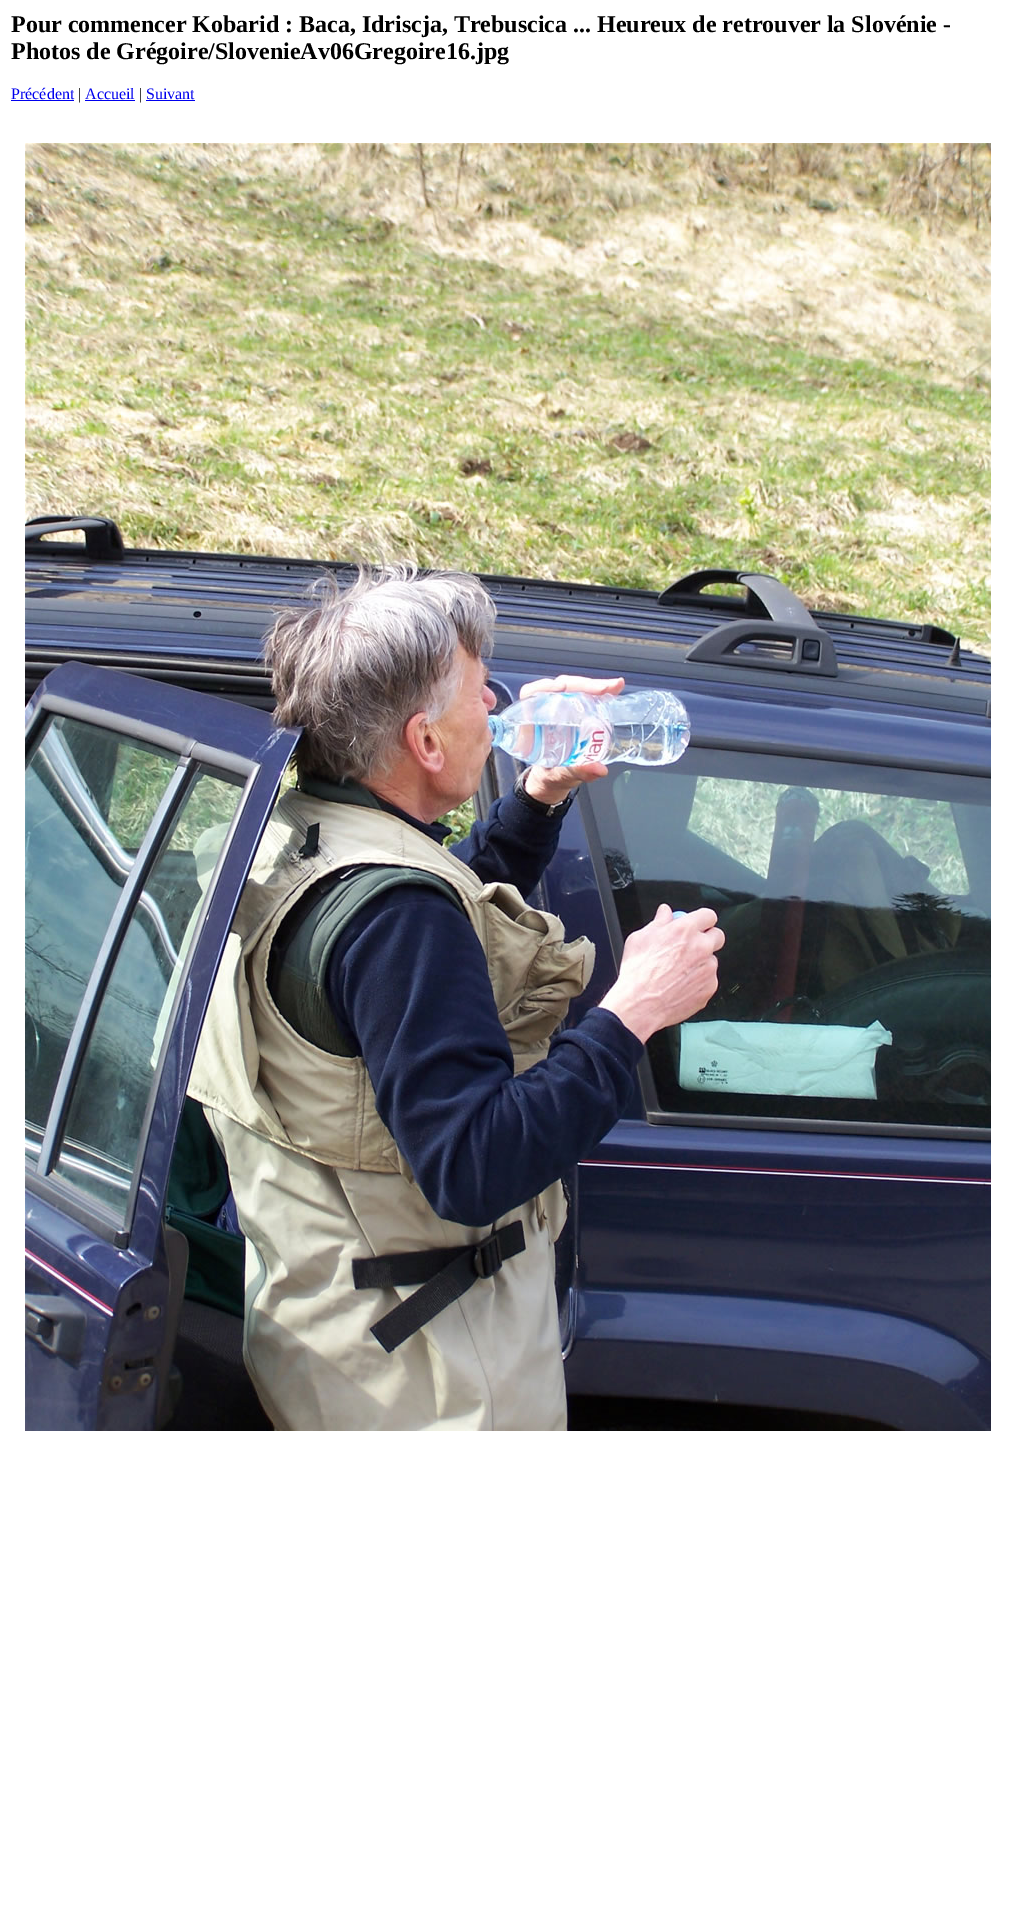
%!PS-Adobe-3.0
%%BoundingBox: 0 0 1016 1922
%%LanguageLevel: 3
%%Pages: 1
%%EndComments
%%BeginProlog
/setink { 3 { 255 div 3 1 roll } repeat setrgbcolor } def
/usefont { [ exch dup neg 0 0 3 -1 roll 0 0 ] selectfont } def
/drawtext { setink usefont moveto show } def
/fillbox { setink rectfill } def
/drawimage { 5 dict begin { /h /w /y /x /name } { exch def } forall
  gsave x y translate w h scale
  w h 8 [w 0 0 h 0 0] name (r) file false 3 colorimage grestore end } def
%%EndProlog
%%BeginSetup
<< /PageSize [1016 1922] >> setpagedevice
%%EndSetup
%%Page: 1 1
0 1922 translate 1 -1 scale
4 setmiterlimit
0 0 1016 1922 255 255 255 fillbox
(Pour commencer Kobarid : Baca, Idriscja, Trebuscica ... Heureux de retrouver la Slovénie -) 11 32 /LiberationSerif-Bold 24 0 0 0 drawtext
(Photos de Grégoire/SlovenieAv06Gregoire16.jpg) 11 59 /LiberationSerif-Bold 24 0 0 0 drawtext
(Précédent) 11 99 /LiberationSerif-Regular 16 0 0 238 drawtext
11 100 63 1 0 0 238 fillbox
(|) 78 99 /LiberationSerif-Regular 16 0 0 0 drawtext
(Accueil) 85 99 /LiberationSerif-Regular 16 0 0 238 drawtext
85 100 50 1 0 0 238 fillbox
(|) 139 99 /LiberationSerif-Regular 16 0 0 0 drawtext
(Suivant) 146 99 /LiberationSerif-Regular 16 0 0 238 drawtext
146 100 49 1 0 0 238 fillbox
(assets/img1.rgb) 25 143 966 1288 drawimage
showpage
%%EOF
